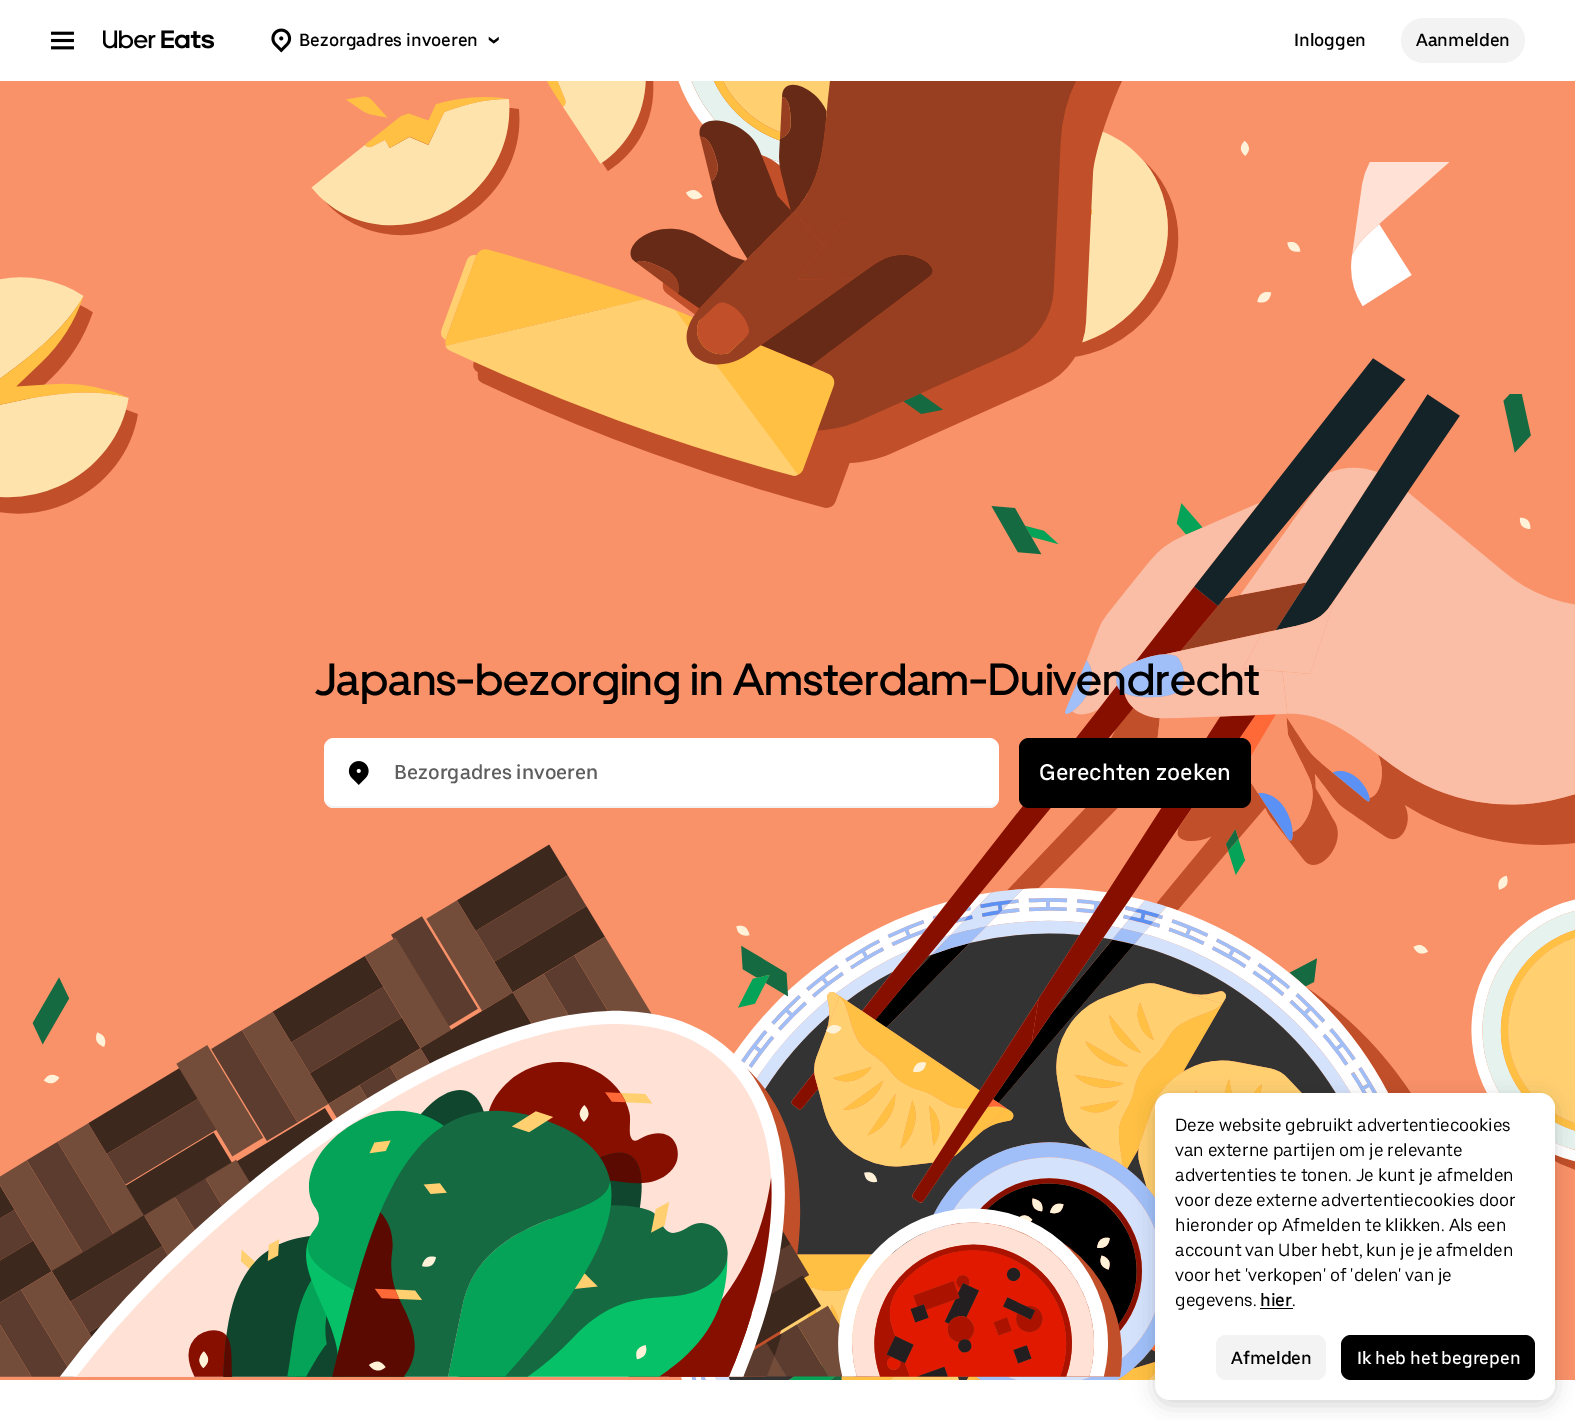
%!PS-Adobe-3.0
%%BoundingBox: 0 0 1575 1420
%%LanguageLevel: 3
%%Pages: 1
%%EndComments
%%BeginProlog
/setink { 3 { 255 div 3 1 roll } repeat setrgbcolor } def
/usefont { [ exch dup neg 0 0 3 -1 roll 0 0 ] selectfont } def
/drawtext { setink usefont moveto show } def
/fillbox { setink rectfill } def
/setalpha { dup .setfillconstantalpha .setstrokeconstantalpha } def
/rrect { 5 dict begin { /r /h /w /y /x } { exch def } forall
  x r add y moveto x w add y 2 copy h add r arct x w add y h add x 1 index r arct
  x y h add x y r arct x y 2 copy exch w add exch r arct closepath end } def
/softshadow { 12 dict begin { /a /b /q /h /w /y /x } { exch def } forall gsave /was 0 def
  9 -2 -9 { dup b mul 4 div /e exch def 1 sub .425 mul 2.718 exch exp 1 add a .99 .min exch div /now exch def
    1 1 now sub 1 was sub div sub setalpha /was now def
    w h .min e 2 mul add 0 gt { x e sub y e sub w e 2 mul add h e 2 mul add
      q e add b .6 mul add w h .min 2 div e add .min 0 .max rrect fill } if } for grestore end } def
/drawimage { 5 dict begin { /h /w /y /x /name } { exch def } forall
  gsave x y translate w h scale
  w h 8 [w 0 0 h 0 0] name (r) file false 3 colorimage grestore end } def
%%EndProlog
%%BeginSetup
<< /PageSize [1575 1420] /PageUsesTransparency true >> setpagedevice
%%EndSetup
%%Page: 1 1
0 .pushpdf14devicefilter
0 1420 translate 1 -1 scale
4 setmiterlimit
0 0 1575 1420 255 255 255 fillbox
(assets/img1.rgb) 51 31 23 19 drawimage
(assets/img2.rgb) 103 30 111 19 drawimage
(assets/img3.rgb) 271 28 21 25 drawimage
(Bezorgadres invoeren) 299 46 /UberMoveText-Medium 17.5 0 0 0 drawtext
(assets/img4.rgb) 488 36 11 8 drawimage
(Inloggen) 1294 46 /UberMoveText-Medium 17.5 0 0 0 drawtext
243 243 243 setink
1401 18 124 45 22.5 rrect fill
(Aanmelden) 1416 46 /UberMoveText-Medium 17.5 0 0 0 drawtext
0 81 1575 1299 250 146 105 fillbox
(assets/img5.rgb) 0 81 1575 1299 drawimage
(Japans-bezorging in Amsterdam-Duivendrecht) 315 695 /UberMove-Medium 45 0 0 0 drawtext
255 255 255 setink
324 738 675 70 10 rrect fill
243 243 243 setink
324 796 moveto 324 802 327 808 334 808 curveto 989 808 lineto 996 808 999 802 999 796 curveto 999 802 994 806 989 806 curveto 334 806 lineto 328 806 324 802 324 796 curveto closepath fill
(assets/img6.rgb) 348 761 21 24 drawimage
(Bezorgadres invoeren) 394 779 /UberMoveText-Medium 20 94 94 94 drawtext
0 0 0 setink
1019 738 232 70 10 rrect fill
(Gerechten zoeken) 1039 780 /UberMoveText-Medium 22.5 255 255 255 drawtext
0 0 0 setink
1155 1098 400 307 15 10 0.16 softshadow
255 255 255 setink
1155 1093 400 307 15 rrect fill
(Deze website gebruikt advertentiecookies) 1175 1131 /UberMoveText-Regular 17.5 0 0 0 drawtext
(van externe partijen om je relevante) 1175 1156 /UberMoveText-Regular 17.5 0 0 0 drawtext
(advertenties te tonen. Je kunt je afmelden) 1175 1181 /UberMoveText-Regular 17.5 0 0 0 drawtext
(voor deze externe advertentiecookies door) 1175 1206 /UberMoveText-Regular 17.5 0 0 0 drawtext
(hieronder op Afmelden te klikken. Als een) 1175 1231 /UberMoveText-Regular 17.5 0 0 0 drawtext
(account van Uber hebt, kun je je afmelden) 1175 1256 /UberMoveText-Regular 17.5 0 0 0 drawtext
(voor het 'verkopen' of 'delen' van je) 1175 1281 /UberMoveText-Regular 17.5 0 0 0 drawtext
(gegevens.) 1175 1306 /UberMoveText-Regular 17.5 0 0 0 drawtext
(hier) 1260 1306 /UberMoveText-Medium 17.5 0 0 0 drawtext
1260 1308 33 1 0 0 0 fillbox
(.) 1292 1306 /UberMoveText-Regular 17.5 0 0 0 drawtext
243 243 243 setink
1216 1335 110 45 10 rrect fill
(Afmelden) 1231 1364 /UberMoveText-Medium 17.5 0 0 0 drawtext
1341 1335 194 45 10 rrect fill
(Ik heb het begrepen) 1357 1364 /UberMoveText-Medium 17.5 255 255 255 drawtext
.poppdf14devicefilter showpage
%%EOF
